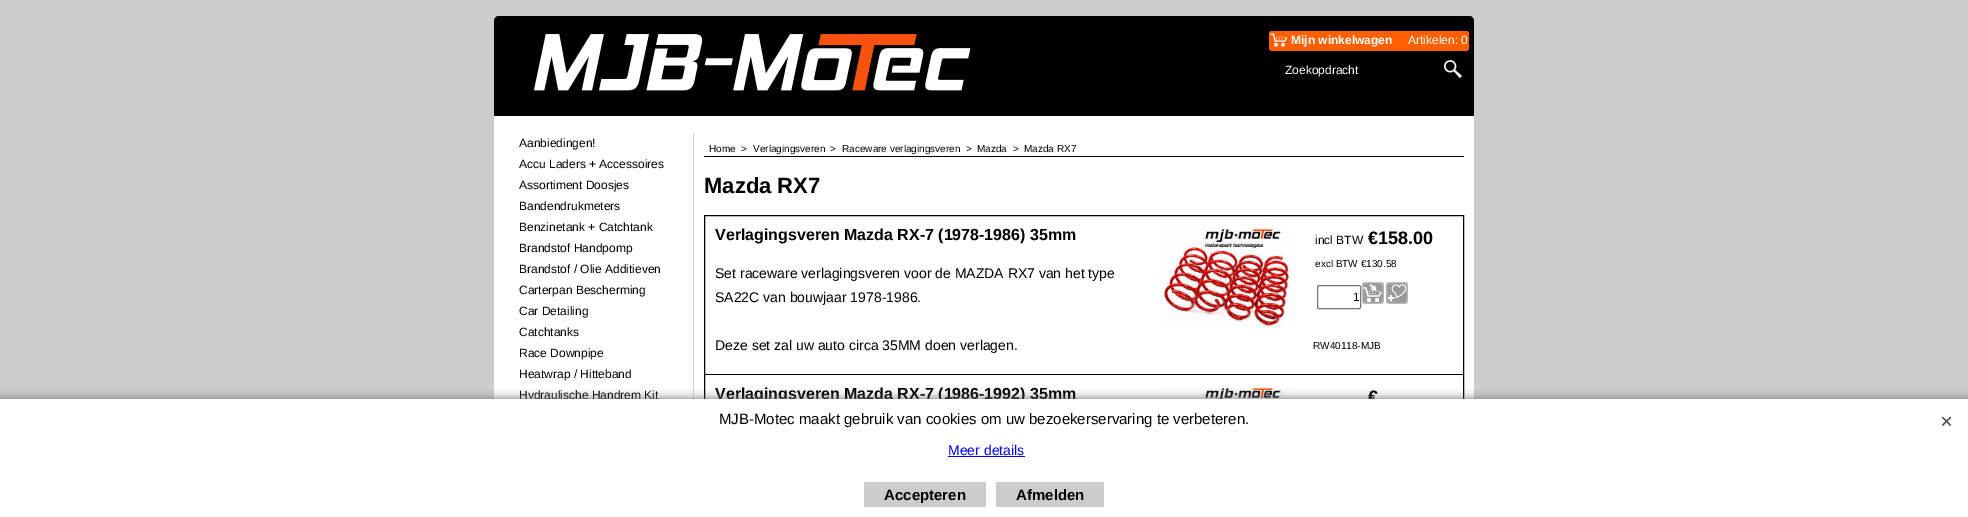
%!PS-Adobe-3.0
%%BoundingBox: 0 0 1968 517
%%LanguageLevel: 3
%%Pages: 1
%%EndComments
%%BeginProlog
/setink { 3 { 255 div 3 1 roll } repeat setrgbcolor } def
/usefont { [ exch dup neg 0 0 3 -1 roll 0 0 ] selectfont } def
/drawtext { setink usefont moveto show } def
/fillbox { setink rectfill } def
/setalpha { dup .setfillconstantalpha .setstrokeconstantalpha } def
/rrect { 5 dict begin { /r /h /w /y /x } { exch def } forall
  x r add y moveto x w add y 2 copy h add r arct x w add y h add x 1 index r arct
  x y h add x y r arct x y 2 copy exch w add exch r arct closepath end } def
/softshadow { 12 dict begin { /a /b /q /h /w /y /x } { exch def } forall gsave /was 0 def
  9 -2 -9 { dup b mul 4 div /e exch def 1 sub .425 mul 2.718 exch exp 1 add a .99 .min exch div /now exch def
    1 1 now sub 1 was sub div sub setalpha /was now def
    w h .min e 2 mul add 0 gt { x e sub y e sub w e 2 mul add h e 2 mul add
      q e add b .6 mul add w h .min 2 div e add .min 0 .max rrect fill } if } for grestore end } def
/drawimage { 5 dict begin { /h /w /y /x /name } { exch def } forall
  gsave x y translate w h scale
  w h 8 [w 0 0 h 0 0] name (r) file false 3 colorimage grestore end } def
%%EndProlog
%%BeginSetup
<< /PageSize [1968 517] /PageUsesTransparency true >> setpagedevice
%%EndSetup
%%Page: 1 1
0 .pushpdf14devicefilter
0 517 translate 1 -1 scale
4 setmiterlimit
0 0 1968 517 204 204 204 fillbox
0 0 0 setink
499 16 moveto 1469 16 lineto 1472 16 1474 18 1474 21 curveto 1474 116 lineto 494 116 lineto 494 21 lineto 494 18 496 16 499 16 curveto closepath fill
(assets/img1.rgb) 494 16 980 75 drawimage
255 95 0 setink
1269 31 200 20 3 rrect fill
1269 31 200 18 3 rrect fill
(assets/img2.rgb) 1270 33 18 14 drawimage
(Mijn winkelwagen) 1291 44 /LiberationSans-Bold 12 255 255 255 drawtext
(Artikelen: 0) 1408 44 /LiberationSans-Regular 12 255 255 255 drawtext
(Zoekopdracht) 1285 74 /LiberationSans-Regular 12 255 255 255 drawtext
(assets/img3.rgb) 1444 60 18 18 drawimage
494 116 980 283 255 255 255 fillbox
693 133 1 266 211 211 211 fillbox
(Aanbiedingen!) 519 147 /LiberationSans-Regular 12 0 0 0 drawtext
(Accu Laders + Accessoires) 519 168 /LiberationSans-Regular 12 0 0 0 drawtext
(Assortiment Doosjes) 519 189 /LiberationSans-Regular 12 0 0 0 drawtext
(Bandendrukmeters) 519 210 /LiberationSans-Regular 12 0 0 0 drawtext
(Benzinetank + Catchtank) 519 231 /LiberationSans-Regular 12 0 0 0 drawtext
(Brandstof Handpomp) 519 252 /LiberationSans-Regular 12 0 0 0 drawtext
(Brandstof / Olie Additieven) 519 273 /LiberationSans-Regular 12 0 0 0 drawtext
(Carterpan Bescherming) 519 294 /LiberationSans-Regular 12 0 0 0 drawtext
(Car Detailing) 519 315 /LiberationSans-Regular 12 0 0 0 drawtext
(Catchtanks) 519 336 /LiberationSans-Regular 12 0 0 0 drawtext
(Race Downpipe) 519 357 /LiberationSans-Regular 12 0 0 0 drawtext
(Heatwrap / Hitteband) 519 378 /LiberationSans-Regular 12 0 0 0 drawtext
(Hydraulische Handrem Kit) 519 399 /LiberationSans-Regular 12 0 0 0 drawtext
704 156 760 1 0 0 0 fillbox
(Home) 709 152 /LiberationSans-Regular 10 0 0 0 drawtext
(>) 741 152 /LiberationSans-Regular 10 0 0 0 drawtext
(Verlagingsveren) 753 152 /LiberationSans-Regular 10 0 0 0 drawtext
(>) 830 152 /LiberationSans-Regular 10 0 0 0 drawtext
(Raceware verlagingsveren) 842 152 /LiberationSans-Regular 10 0 0 0 drawtext
(>) 966 152 /LiberationSans-Regular 10 0 0 0 drawtext
(Mazda) 977 152 /LiberationSans-Regular 10 0 0 0 drawtext
(>) 1013 152 /LiberationSans-Regular 10 0 0 0 drawtext
(Mazda RX7) 1024 152 /LiberationSans-Regular 10 0 0 0 drawtext
(Mazda RX7) 704 193 /LiberationSans-Bold 22 0 0 0 drawtext
704.5 215.5 759 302 rectstroke
(Verlagingsveren Mazda RX-7 \(1978-1986\) 35mm) 715 240 /LiberationSans-Bold 16 0 0 0 drawtext
(assets/img4.rgb) 1162 226 128 102 drawimage
(Set raceware verlagingsveren voor de MAZDA RX7 van het type) 715 278 /LiberationSans-Regular 14 0 0 0 drawtext
(SA22C van bouwjaar 1978-1986.) 715 302 /LiberationSans-Regular 14 0 0 0 drawtext
(Deze set zal uw auto circa 35MM doen verlagen.) 715 350 /LiberationSans-Regular 14 0 0 0 drawtext
(incl BTW) 1315 244 /LiberationSans-Regular 12 0 0 0 drawtext
(€158.00) 1368 244 /LiberationSans-Bold 18 0 0 0 drawtext
(excl BTW €130.58) 1315 267 /LiberationSans-Regular 10 0 0 0 drawtext
118 118 118 setink
1317.5 285.5 43 23 1.5 rrect stroke
(1) 1353 301 /LiberationSans-Regular 12 0 0 0 drawtext
(assets/img5.rgb) 1362 282 22 22 drawimage
(assets/img6.rgb) 1386 282 22 22 drawimage
(RW40118-MJB) 1313 349 /LiberationSans-Regular 10 0 0 0 drawtext
705 374 758 1 0 0 0 fillbox
(Verlagingsveren Mazda RX-7 \(1986-1992\) 35mm) 715 399 /LiberationSans-Bold 16 0 0 0 drawtext
(assets/img7.rgb) 1162 385 128 14 drawimage
(€) 1368 403 /LiberationSans-Bold 18 0 0 0 drawtext
102 102 102 setink
0 399 1968 118 0 5 1 softshadow
0 399 1968 118 255 255 255 fillbox
(MJB-Motec maakt gebruik van cookies om uw bezoekerservaring te verbeteren.) 719 424 /LiberationSans-Regular 15 0 0 0 drawtext
(Meer details) 948 455 /LiberationSans-Regular 14 0 0 255 drawtext
948 456 77 1 0 0 255 fillbox
(assets/img8.rgb) 1941 416 11 10 drawimage
864 482 122 25 204 204 204 fillbox
(Accepteren) 884 500 /LiberationSans-Bold 15 0 0 0 drawtext
996 482 108 25 204 204 204 fillbox
(Afmelden) 1016 500 /LiberationSans-Bold 15 0 0 0 drawtext
.poppdf14devicefilter showpage
%%EOF
